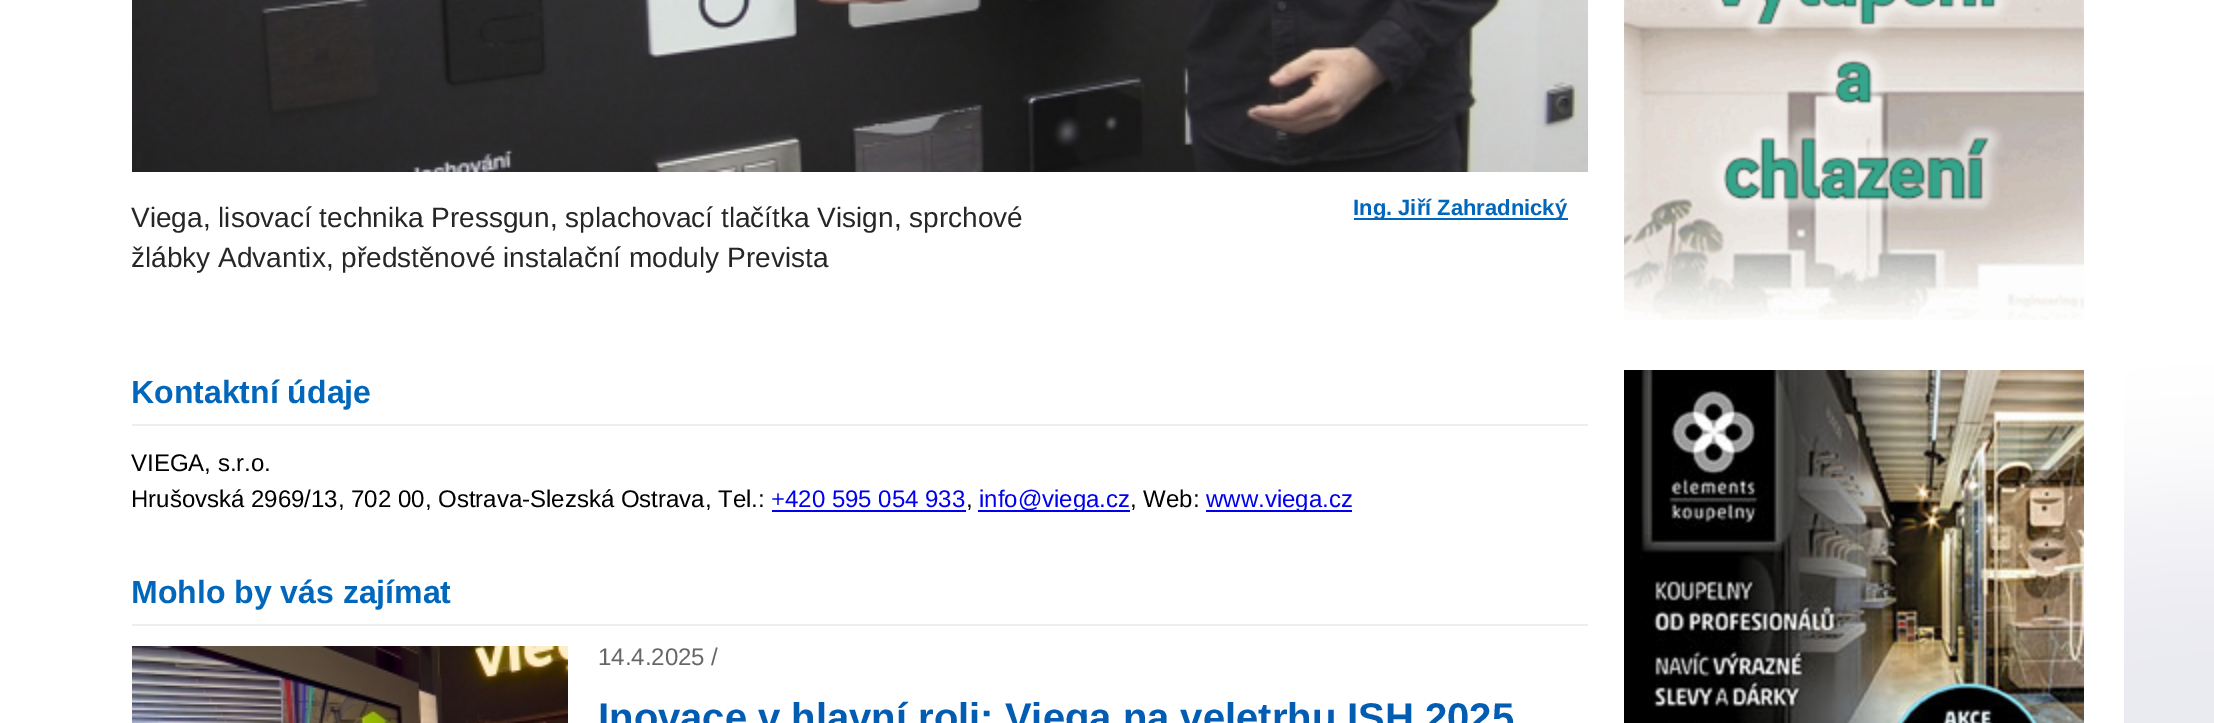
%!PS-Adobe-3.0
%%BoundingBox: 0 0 2214 723
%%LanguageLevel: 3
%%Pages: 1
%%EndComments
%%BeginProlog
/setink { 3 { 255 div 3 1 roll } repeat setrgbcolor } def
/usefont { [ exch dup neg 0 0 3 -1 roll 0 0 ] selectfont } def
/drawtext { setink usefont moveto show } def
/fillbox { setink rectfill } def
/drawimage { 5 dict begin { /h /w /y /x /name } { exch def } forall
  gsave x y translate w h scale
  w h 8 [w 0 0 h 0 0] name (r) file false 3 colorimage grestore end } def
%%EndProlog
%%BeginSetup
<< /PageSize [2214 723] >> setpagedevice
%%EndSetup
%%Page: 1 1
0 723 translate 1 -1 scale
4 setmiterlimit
0 0 2214 723 255 255 255 fillbox
(assets/img1.rgb) 2124 63 90 660 drawimage
(assets/img2.rgb) 132 0 1456 172 drawimage
(Viega, lisovací technika Pressgun, splachovací tlačítka Visign, sprchové) 131 227 /LiberationSans-Regular 28 38 38 38 drawtext
(žlábky Advantix, předstěnové instalační moduly Prevista) 131 267 /LiberationSans-Regular 28 38 38 38 drawtext
1354 218 214 2 2 103 186 fillbox
(Ing. Jiří Zahradnický) 1353 215 /LiberationSans-Bold 22 2 103 186 drawtext
132 424 1456 2 238 238 238 fillbox
(Kontaktní údaje) 131 403 /LiberationSans-Bold 32 2 103 186 drawtext
(VIEGA, s.r.o.) 131 471 /LiberationSans-Regular 24 0 0 0 drawtext
(Hrušovská 2969/13, 702 00, Ostrava-Slezská Ostrava, Tel.:) 131 507 /LiberationSans-Regular 24 0 0 0 drawtext
(+420 595 054 933) 771 507 /LiberationSans-Regular 24 0 0 238 drawtext
772 510 194 2 0 0 238 fillbox
(,) 966 507 /LiberationSans-Regular 24 0 0 0 drawtext
978 510 152 2 0 0 238 fillbox
(info@viega.cz) 979 507 /LiberationSans-Regular 24 0 0 238 drawtext
(, Web:) 1130 507 /LiberationSans-Regular 24 0 0 0 drawtext
1206 510 146 2 0 0 238 fillbox
(www.viega.cz) 1206 507 /LiberationSans-Regular 24 0 0 238 drawtext
132 624 1456 2 238 238 238 fillbox
(Mohlo by vás zajímat) 131 603 /LiberationSans-Bold 32 2 103 186 drawtext
(assets/img3.rgb) 132 646 436 77 drawimage
(14.4.2025 /) 598 665 /LiberationSans-Regular 24 103 103 103 drawtext
(Inovace v hlavní roli: Viega na veletrhu ISH 2025) 598 731 /LiberationSans-Bold 40 2 92 178 drawtext
(assets/img4.rgb) 1624 0 460 320 drawimage
(assets/img5.rgb) 1624 370 460 353 drawimage
showpage
%%EOF
